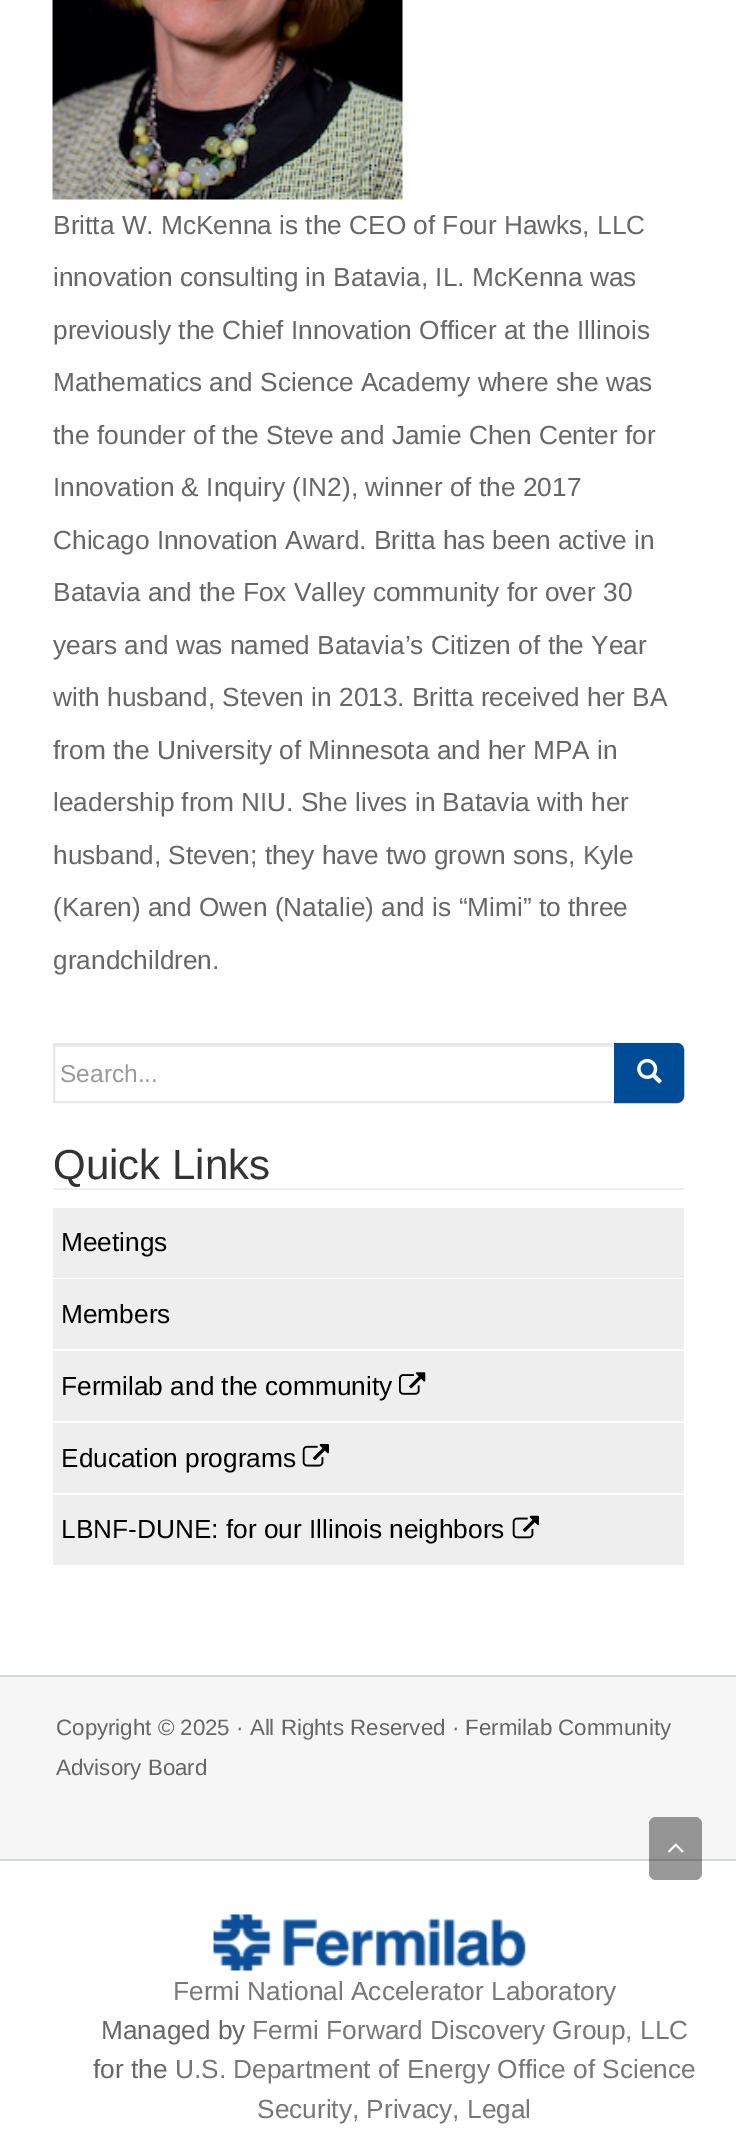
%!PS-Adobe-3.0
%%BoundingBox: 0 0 736 2136
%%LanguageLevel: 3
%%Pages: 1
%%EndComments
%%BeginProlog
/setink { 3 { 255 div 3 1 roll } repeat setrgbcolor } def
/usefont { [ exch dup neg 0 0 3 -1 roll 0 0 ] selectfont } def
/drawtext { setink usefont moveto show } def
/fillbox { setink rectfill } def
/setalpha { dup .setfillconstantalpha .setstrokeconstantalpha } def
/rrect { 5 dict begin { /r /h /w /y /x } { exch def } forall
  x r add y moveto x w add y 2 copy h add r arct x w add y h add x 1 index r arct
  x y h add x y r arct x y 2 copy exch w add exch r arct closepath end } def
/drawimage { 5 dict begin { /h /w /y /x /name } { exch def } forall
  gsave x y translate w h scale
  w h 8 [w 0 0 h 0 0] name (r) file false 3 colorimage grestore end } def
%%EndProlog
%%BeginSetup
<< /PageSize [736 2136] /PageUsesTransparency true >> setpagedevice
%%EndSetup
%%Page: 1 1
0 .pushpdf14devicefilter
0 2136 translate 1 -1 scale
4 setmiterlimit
0 0 736 2136 255 255 255 fillbox
(assets/img1.rgb) 52 0 351 200 drawimage
(Britta W. McKenna is the CEO of Four Hawks, LLC) 53 234 /LiberationSans-Regular 26.25 102 102 102 drawtext
(innovation consulting in Batavia, IL. McKenna was) 53 286 /LiberationSans-Regular 26.25 102 102 102 drawtext
(previously the Chief Innovation Officer at the Illinois) 53 339 /LiberationSans-Regular 26.25 102 102 102 drawtext
(Mathematics and Science Academy where she was) 53 391 /LiberationSans-Regular 26.25 102 102 102 drawtext
(the founder of the Steve and Jamie Chen Center for) 53 444 /LiberationSans-Regular 26.25 102 102 102 drawtext
(Innovation & Inquiry \(IN2\), winner of the 2017) 53 496 /LiberationSans-Regular 26.25 102 102 102 drawtext
(Chicago Innovation Award. Britta has been active in) 53 549 /LiberationSans-Regular 26.25 102 102 102 drawtext
(Batavia and the Fox Valley community for over 30) 53 601 /LiberationSans-Regular 26.25 102 102 102 drawtext
(years and was named Batavia’s Citizen of the Year) 53 654 /LiberationSans-Regular 26.25 102 102 102 drawtext
(with husband, Steven in 2013. Britta received her BA) 53 706 /LiberationSans-Regular 26.25 102 102 102 drawtext
(from the University of Minnesota and her MPA in) 53 759 /LiberationSans-Regular 26.25 102 102 102 drawtext
(leadership from NIU. She lives in Batavia with her) 53 811 /LiberationSans-Regular 26.25 102 102 102 drawtext
(husband, Steven; they have two grown sons, Kyle) 53 864 /LiberationSans-Regular 26.25 102 102 102 drawtext
(\(Karen\) and Owen \(Natalie\) and is “Mimi” to three) 53 916 /LiberationSans-Regular 26.25 102 102 102 drawtext
(grandchildren.) 53 969 /LiberationSans-Regular 26.25 102 102 102 drawtext
54 1045 560 2 236 236 236 fillbox
232 232 232 setink
2 setlinewidth
54 1044 561 58 rectstroke
(Search...) 60 1082 /LiberationSans-Regular 24.5 153 153 153 drawtext
0 76 151 setink
615 1044 moveto 677 1044 lineto 680.5 1044 683 1046.5 683 1050 curveto 683 1096 lineto 683 1099.5 680.5 1102 677 1102 curveto 615 1102 lineto closepath gsave fill grestore
stroke
(assets/img2.rgb) 637 1058 25 26 drawimage
53 1188 631 2 238 238 238 fillbox
(Quick Links) 53 1179 /LiberationSans-Regular 42 51 51 51 drawtext
53 1208 631 70 238 238 238 fillbox
(Meetings) 61 1251 /LiberationSans-Regular 26.25 0 0 0 drawtext
53 1279 631 70 238 238 238 fillbox
(Members) 61 1323 /LiberationSans-Regular 26.25 0 0 0 drawtext
53 1351 631 70 238 238 238 fillbox
(Fermilab and the community) 61 1395 /LiberationSans-Regular 26.25 0 0 0 drawtext
(assets/img3.rgb) 399 1372 27 23 drawimage
53 1423 631 70 238 238 238 fillbox
(Education programs) 61 1467 /LiberationSans-Regular 26.25 0 0 0 drawtext
(assets/img4.rgb) 302 1444 27 23 drawimage
53 1495 631 70 238 238 238 fillbox
(LBNF-DUNE: for our Illinois neighbors) 61 1538 /LiberationSans-Regular 26.25 0 0 0 drawtext
(assets/img5.rgb) 512 1515 27 24 drawimage
0 1677 736 182 246 246 246 fillbox
0 1675 736 2 208 215 221 fillbox
(Copyright © 2025 · All Rights Reserved · Fermilab Community) 56 1735 /LiberationSans-Regular 22.3 102 102 102 drawtext
(Advisory Board) 56 1775 /LiberationSans-Regular 22.3 102 102 102 drawtext
0 1859 736 2 208 215 221 fillbox
0.4 setalpha
0 0 0 setink
649 1817 53 63 7 rrect fill
1 setalpha
(assets/img6.rgb) 668 1843 16 10 drawimage
(assets/img7.rgb) 213 1914 313 57 drawimage
(Fermi National Accelerator Laboratory) 173 2000 /LiberationSans-Regular 26.25 119 119 119 drawtext
(Managed by) 101 2039 /LiberationSans-Regular 26.25 102 102 102 drawtext
(Fermi Forward Discovery Group, LLC) 252 2039 /LiberationSans-Regular 26.25 119 119 119 drawtext
(for the) 93 2078 /LiberationSans-Regular 26.25 102 102 102 drawtext
(U.S. Department of Energy Office of Science) 175 2078 /LiberationSans-Regular 26.25 119 119 119 drawtext
(Security, Privacy, Legal) 257 2118 /LiberationSans-Regular 26.25 119 119 119 drawtext
.poppdf14devicefilter showpage
%%EOF
